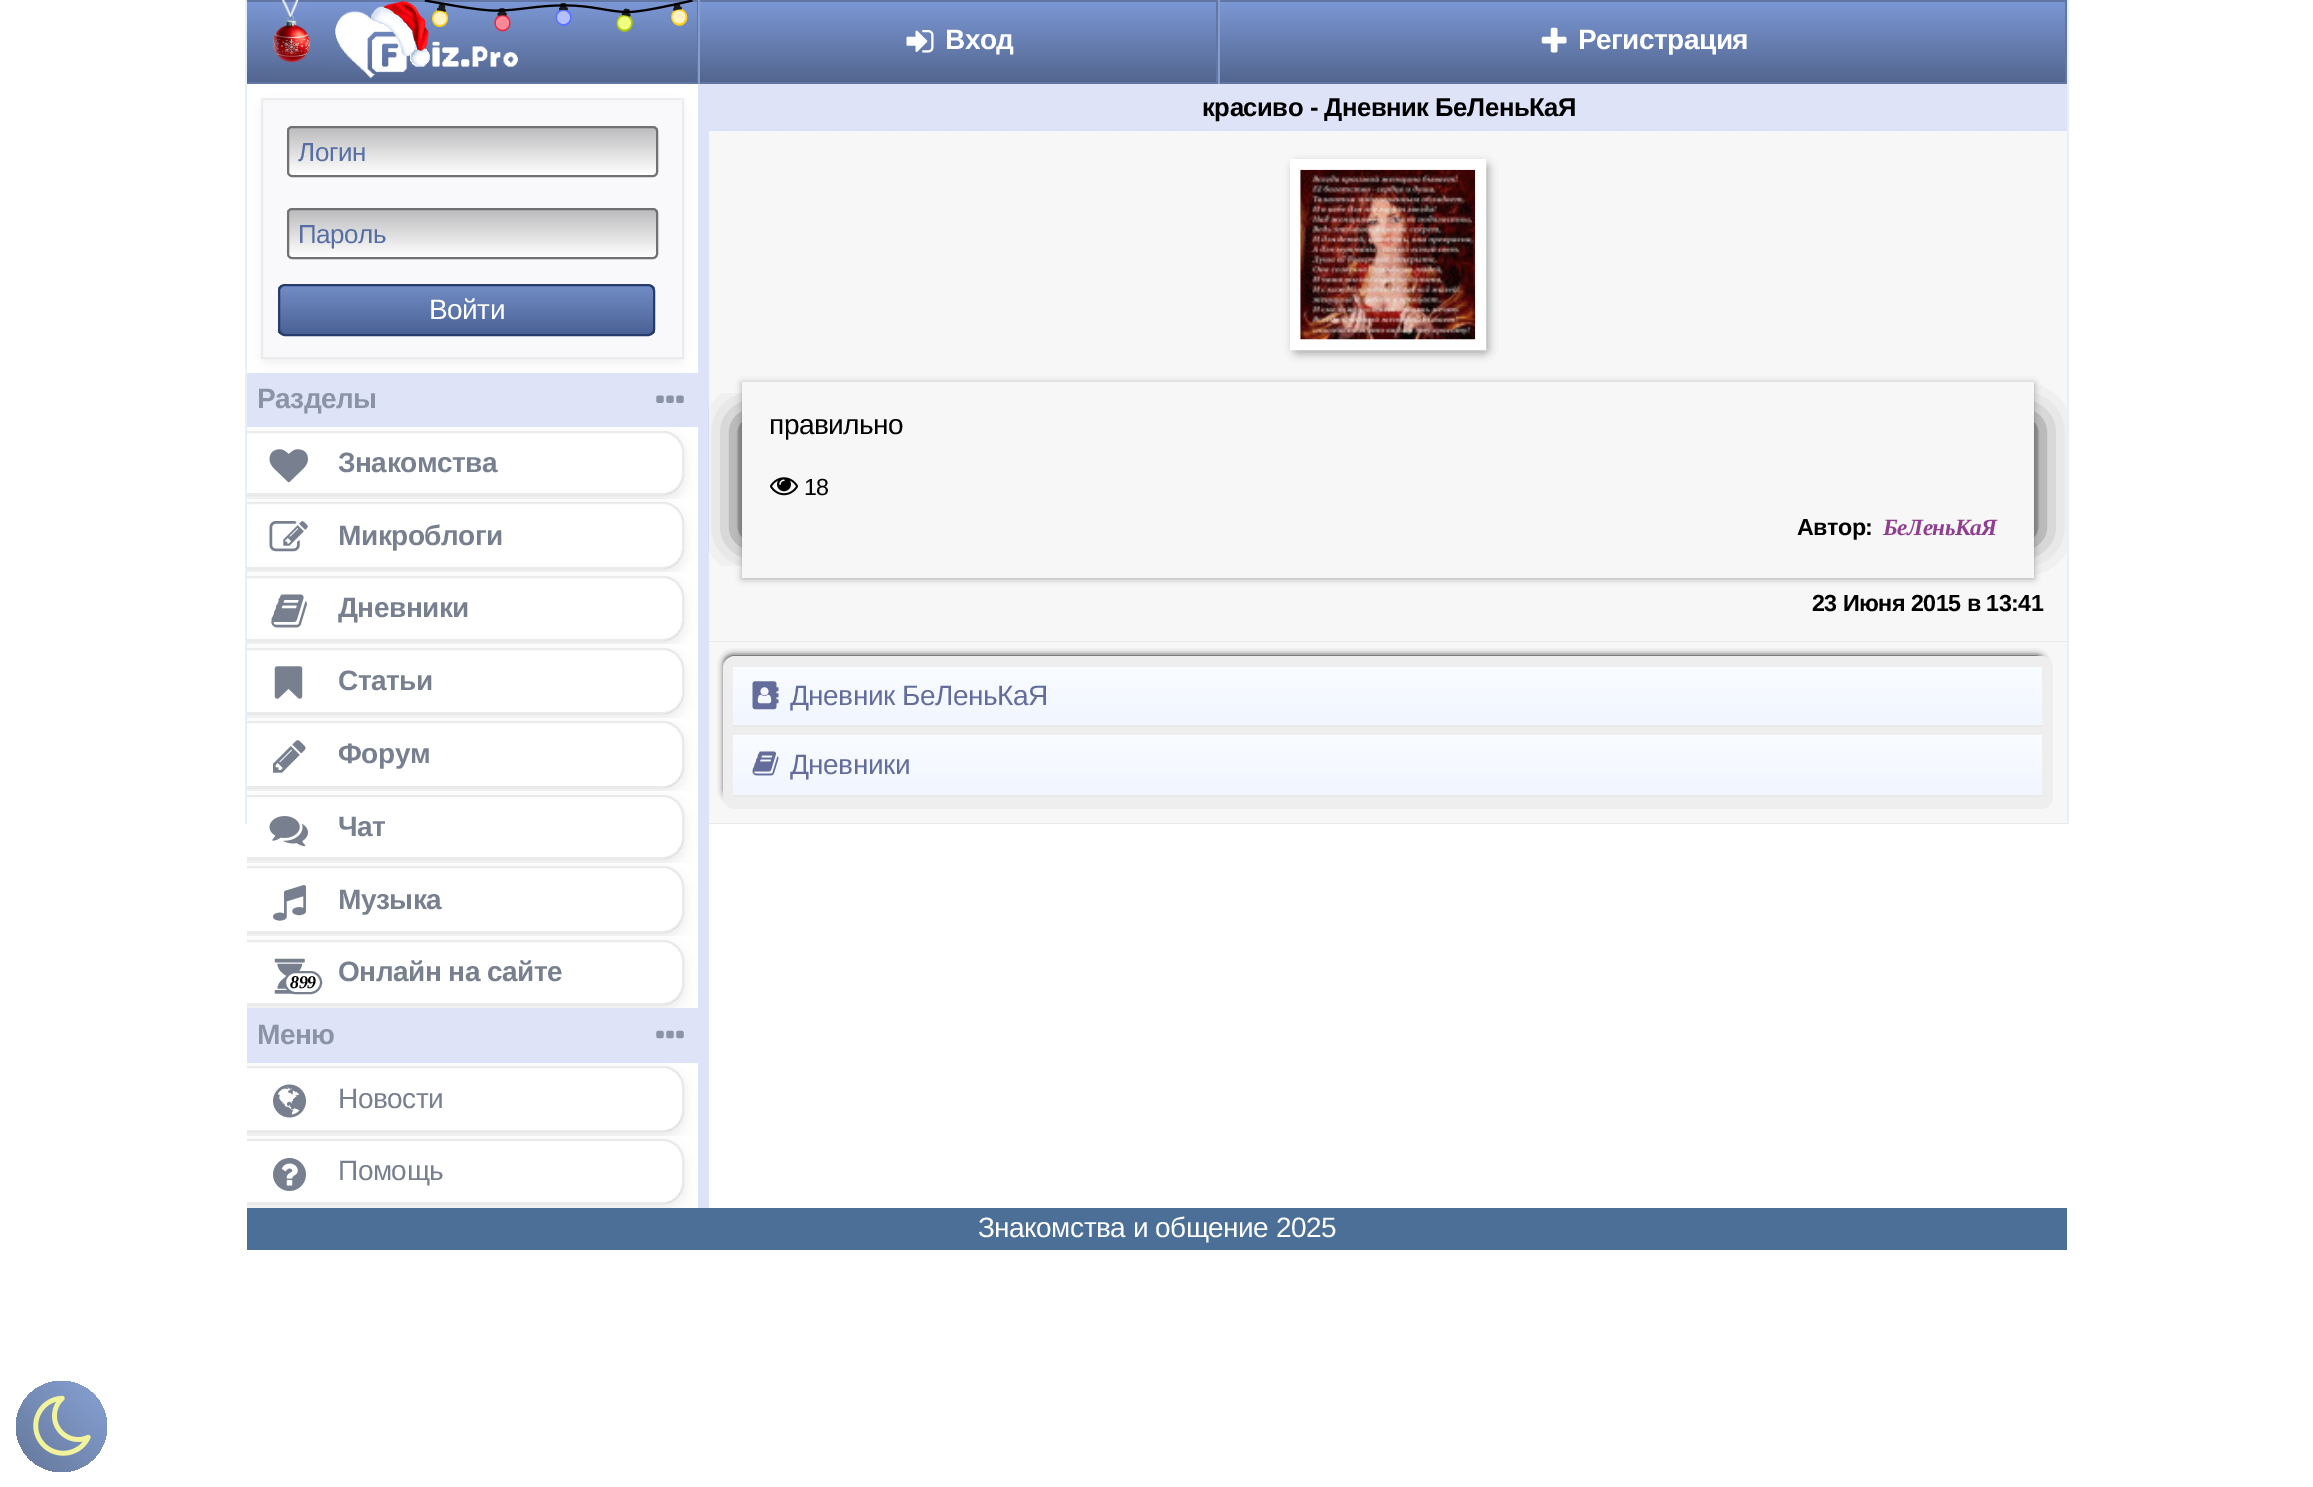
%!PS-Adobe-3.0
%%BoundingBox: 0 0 2313 1487
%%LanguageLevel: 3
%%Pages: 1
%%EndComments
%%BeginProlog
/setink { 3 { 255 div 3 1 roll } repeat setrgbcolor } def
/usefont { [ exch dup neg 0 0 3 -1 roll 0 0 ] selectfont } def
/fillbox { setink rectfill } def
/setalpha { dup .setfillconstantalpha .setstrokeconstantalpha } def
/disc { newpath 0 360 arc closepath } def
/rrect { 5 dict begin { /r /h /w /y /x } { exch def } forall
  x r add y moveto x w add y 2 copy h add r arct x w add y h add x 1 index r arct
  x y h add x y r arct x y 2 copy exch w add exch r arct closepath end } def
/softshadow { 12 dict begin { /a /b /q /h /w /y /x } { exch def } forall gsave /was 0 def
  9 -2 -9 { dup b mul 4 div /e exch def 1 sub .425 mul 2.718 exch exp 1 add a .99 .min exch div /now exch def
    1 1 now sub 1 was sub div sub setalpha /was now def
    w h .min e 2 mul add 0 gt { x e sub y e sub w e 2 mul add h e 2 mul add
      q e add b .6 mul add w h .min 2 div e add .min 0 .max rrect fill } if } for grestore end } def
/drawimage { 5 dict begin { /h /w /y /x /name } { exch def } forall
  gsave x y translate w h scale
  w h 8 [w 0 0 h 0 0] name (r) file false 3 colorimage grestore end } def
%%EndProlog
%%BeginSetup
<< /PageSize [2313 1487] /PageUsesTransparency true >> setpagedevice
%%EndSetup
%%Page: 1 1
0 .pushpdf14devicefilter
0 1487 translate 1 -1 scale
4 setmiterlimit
0 0 2313 1487 255 255 255 fillbox
2067 0 2 824 231 240 246 fillbox
245 0 2 824 231 240 246 fillbox
698 84 11 1124 222 227 248 fillbox
gsave 247 2 moveto 697 2 lineto 697 82 lineto 247 82 lineto closepath clip newpath
<< /ShadingType 2 /ColorSpace /DeviceRGB /Coords [245 0 245 84] /Extend [true true] /Function << /FunctionType 2 /Domain [0 1] /C0 [0.486 0.596 0.839] /C1 [0.322 0.396 0.557] /N 1 >> >> shfill grestore
247 0 1820 2 97 118 163 fillbox
697 0 1 84 97 118 163 fillbox
247 82 451 2 97 118 163 fillbox
(assets/img1.rgb) 273 0 38 63 drawimage
(assets/img3.rgb) 424 0 269 32 drawimage
(assets/img4.rgb) 335 11 183 68 drawimage
(assets/img2.rgb) 371 1 59 65 drawimage
0 0 0 setink
261 103 423 261 7 6 0.05 softshadow
249 249 251 setink
261 98 423 261 7 rrect fill
0.05 setalpha
0 0 0 setink
2 setlinewidth
262 99 421 259 rectstroke
gsave
287 126 371 51 5 rrect clip newpath
1 setalpha
gsave 287 128 moveto 658 128 lineto 658 175 lineto 287 175 lineto closepath clip newpath
<< /ShadingType 2 /ColorSpace /DeviceRGB /Coords [289 128 289 175] /Extend [true true] /Function << /FunctionType 2 /Domain [0 1] /C0 [0.737 0.737 0.745] /C1 [1 1 1] /N 1 >> >> shfill grestore
grestore
1 setalpha
113 113 113 setink
288 127 369 49 4 rrect stroke
/LiberationSans-Regular 26 usefont
86 110 163 setink
298 161 moveto -0.5 0 (Логин) ashow
gsave
287 208 371 51 5 rrect clip newpath
gsave 287 210 moveto 658 210 lineto 658 257 lineto 287 257 lineto closepath clip newpath
<< /ShadingType 2 /ColorSpace /DeviceRGB /Coords [289 210 289 257] /Extend [true true] /Function << /FunctionType 2 /Domain [0 1] /C0 [0.737 0.737 0.745] /C1 [1 1 1] /N 1 >> >> shfill grestore
grestore
113 113 113 setink
288 209 369 49 4 rrect stroke
86 110 163 setink
298 243 moveto -0.5 0 (Пароль) ashow
gsave
278 284 377 52 7 rrect clip newpath
gsave 278 285 moveto 655 285 lineto 655 334 lineto 278 334 lineto closepath clip newpath
<< /ShadingType 2 /ColorSpace /DeviceRGB /Coords [280 285 280 334] /Extend [true true] /Function << /FunctionType 2 /Domain [0 1] /C0 [0.451 0.553 0.776] /C1 [0.29 0.384 0.584] /N 1 >> >> shfill grestore
grestore
39 60 108 setink
279 285 375 50 6 rrect stroke
/LiberationSans-Regular 28 usefont
255 255 255 setink
429 319 moveto -0.5 0 (Войти) ashow
247 373 451 54 222 227 248 fillbox
/LiberationSans-Bold 28 usefont
139 148 166 setink
257 408 moveto -0.5 0 (Разделы) ashow
(assets/img5.rgb) 656 395 28 8 drawimage
gsave
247 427 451 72 rectclip
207 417 moveto 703 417 lineto 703 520 lineto 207 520 lineto closepath 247 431 moveto 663 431 lineto 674.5 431 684 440.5 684 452 curveto 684 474 lineto 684 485.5 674.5 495 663 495 curveto 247 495 lineto 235.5 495 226 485.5 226 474 curveto 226 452 lineto 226 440.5 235.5 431 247 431 curveto closepath eoclip newpath
0 0 0 setink
226 436 458 65 21 6 0.08 softshadow
grestore
gsave
247 427 451 72 rectclip
0.08 setalpha
0 0 0 setink
227 432 456 62 20 rrect stroke
grestore
(assets/img6.rgb) 269 449 39 34 drawimage
120 128 143 setink
338 472 moveto -0.5 0 (Знакомства) ashow
gsave
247 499 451 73 rectclip
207 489 moveto 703 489 lineto 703 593 lineto 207 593 lineto closepath 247 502 moveto 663 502 lineto 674.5 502 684 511.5 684 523 curveto 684 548 lineto 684 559.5 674.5 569 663 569 curveto 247 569 lineto 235.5 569 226 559.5 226 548 curveto 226 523 lineto 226 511.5 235.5 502 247 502 curveto closepath eoclip newpath
0 0 0 setink
226 508 458 66 21 6 0.08 softshadow
grestore
gsave
247 499 451 73 rectclip
0.08 setalpha
0 0 0 setink
227 503 456 65 20 rrect stroke
grestore
(assets/img7.rgb) 269 521 39 31 drawimage
338 545 moveto -0.5 0 (Микроблоги) ashow
gsave
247 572 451 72 rectclip
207 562 moveto 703 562 lineto 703 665 lineto 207 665 lineto closepath 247 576 moveto 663 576 lineto 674.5 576 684 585.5 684 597 curveto 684 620 lineto 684 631.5 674.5 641 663 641 curveto 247 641 lineto 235.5 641 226 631.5 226 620 curveto 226 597 lineto 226 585.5 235.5 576 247 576 curveto closepath eoclip newpath
0 0 0 setink
226 581 458 65 21 6 0.08 softshadow
grestore
gsave
247 572 451 72 rectclip
0.08 setalpha
0 0 0 setink
227 577 456 63 20 rrect stroke
grestore
(assets/img8.rgb) 271 594 36 34 drawimage
338 617 moveto -0.5 0 (Дневники) ashow
gsave
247 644 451 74 rectclip
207 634 moveto 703 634 lineto 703 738 lineto 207 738 lineto closepath 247 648 moveto 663 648 lineto 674.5 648 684 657.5 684 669 curveto 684 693 lineto 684 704.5 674.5 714 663 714 curveto 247 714 lineto 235.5 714 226 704.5 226 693 curveto 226 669 lineto 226 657.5 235.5 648 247 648 curveto closepath eoclip newpath
0 0 0 setink
226 653 458 66 21 6 0.08 softshadow
grestore
gsave
247 644 451 74 rectclip
0.08 setalpha
0 0 0 setink
227 649 456 64 20 rrect stroke
grestore
(assets/img9.rgb) 274 666 29 33 drawimage
338 690 moveto -0.5 0 (Статьи) ashow
gsave
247 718 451 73 rectclip
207 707 moveto 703 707 lineto 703 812 lineto 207 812 lineto closepath 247 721 moveto 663 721 lineto 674.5 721 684 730.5 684 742 curveto 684 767 lineto 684 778.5 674.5 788 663 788 curveto 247 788 lineto 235.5 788 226 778.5 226 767 curveto 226 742 lineto 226 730.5 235.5 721 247 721 curveto closepath eoclip newpath
0 0 0 setink
226 726 458 67 21 6 0.08 softshadow
grestore
gsave
247 718 451 73 rectclip
0.08 setalpha
0 0 0 setink
227 722 456 65 20 rrect stroke
grestore
(assets/img10.rgb) 273 740 33 33 drawimage
338 763 moveto -0.5 0 (Форум) ashow
gsave
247 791 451 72 rectclip
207 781 moveto 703 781 lineto 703 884 lineto 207 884 lineto closepath 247 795 moveto 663 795 lineto 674.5 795 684 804.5 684 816 curveto 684 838 lineto 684 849.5 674.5 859 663 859 curveto 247 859 lineto 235.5 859 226 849.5 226 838 curveto 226 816 lineto 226 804.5 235.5 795 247 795 curveto closepath eoclip newpath
0 0 0 setink
226 800 458 65 21 6 0.08 softshadow
grestore
gsave
247 791 451 72 rectclip
0.08 setalpha
0 0 0 setink
227 796 456 62 20 rrect stroke
grestore
(assets/img11.rgb) 269 816 39 31 drawimage
338 836 moveto -0.5 0 (Чат) ashow
gsave
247 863 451 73 rectclip
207 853 moveto 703 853 lineto 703 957 lineto 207 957 lineto closepath 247 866 moveto 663 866 lineto 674.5 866 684 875.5 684 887 curveto 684 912 lineto 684 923.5 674.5 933 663 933 curveto 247 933 lineto 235.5 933 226 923.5 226 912 curveto 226 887 lineto 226 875.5 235.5 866 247 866 curveto closepath eoclip newpath
0 0 0 setink
226 872 458 66 21 6 0.08 softshadow
grestore
gsave
247 863 451 73 rectclip
0.08 setalpha
0 0 0 setink
227 867 456 65 20 rrect stroke
grestore
(assets/img12.rgb) 273 885 33 36 drawimage
338 909 moveto -0.5 0 (Музыка) ashow
gsave
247 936 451 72 rectclip
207 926 moveto 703 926 lineto 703 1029 lineto 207 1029 lineto closepath 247 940 moveto 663 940 lineto 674.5 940 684 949.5 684 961 curveto 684 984 lineto 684 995.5 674.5 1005 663 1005 curveto 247 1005 lineto 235.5 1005 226 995.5 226 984 curveto 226 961 lineto 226 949.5 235.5 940 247 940 curveto closepath eoclip newpath
0 0 0 setink
226 945 458 65 21 6 0.08 softshadow
grestore
gsave
247 936 451 72 rectclip
0.08 setalpha
0 0 0 setink
227 941 456 63 20 rrect stroke
grestore
(assets/img13.rgb) 274 958 31 36 drawimage
255 255 255 setink
285 972 36 21 10.5 rrect gsave fill grestore
120 128 143 setink
stroke
/LiberationSerif-BoldItalic 18 usefont
0 0 0 setink
290 988 moveto -0.5 0 (899) ashow
/LiberationSans-Bold 28 usefont
120 128 143 setink
338 981 moveto -0.5 0 (Онлайн на сайте) ashow
247 1008 451 55 222 227 248 fillbox
139 148 166 setink
257 1044 moveto -0.5 0 (Меню) ashow
(assets/img14.rgb) 656 1030 28 9 drawimage
gsave
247 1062 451 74 rectclip
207 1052 moveto 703 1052 lineto 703 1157 lineto 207 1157 lineto closepath 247 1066 moveto 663 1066 lineto 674.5 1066 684 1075.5 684 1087 curveto 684 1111 lineto 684 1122.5 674.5 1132 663 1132 curveto 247 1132 lineto 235.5 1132 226 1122.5 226 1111 curveto 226 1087 lineto 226 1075.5 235.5 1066 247 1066 curveto closepath eoclip newpath
0 0 0 setink
226 1071 458 67 21 6 0.08 softshadow
grestore
gsave
247 1062 451 74 rectclip
0.08 setalpha
0 0 0 setink
227 1067 456 64 20 rrect stroke
grestore
(assets/img15.rgb) 273 1084 33 34 drawimage
/LiberationSans-Regular 28 usefont
120 128 143 setink
338 1108 moveto -0.5 0 (Новости) ashow
gsave
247 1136 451 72 rectclip
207 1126 moveto 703 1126 lineto 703 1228 lineto 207 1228 lineto closepath 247 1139 moveto 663 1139 lineto 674.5 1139 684 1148.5 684 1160 curveto 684 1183 lineto 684 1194.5 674.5 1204 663 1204 curveto 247 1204 lineto 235.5 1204 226 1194.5 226 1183 curveto 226 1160 lineto 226 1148.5 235.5 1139 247 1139 curveto closepath eoclip newpath
0 0 0 setink
226 1145 458 64 21 6 0.08 softshadow
grestore
gsave
247 1136 451 72 rectclip
0.08 setalpha
0 0 0 setink
227 1140 456 63 20 rrect stroke
grestore
(assets/img16.rgb) 273 1158 33 33 drawimage
338 1180 moveto -0.5 0 (Помощь) ashow
gsave 700 2 moveto 2065 2 lineto 2065 82 lineto 700 82 lineto closepath clip newpath
<< /ShadingType 2 /ColorSpace /DeviceRGB /Coords [698 0 698 84] /Extend [true true] /Function << /FunctionType 2 /Domain [0 1] /C0 [0.486 0.596 0.839] /C1 [0.322 0.396 0.557] /N 1 >> >> shfill grestore
1216 0 2 84 97 118 163 fillbox
698 82 520 2 97 118 163 fillbox
698 0 2 84 134 157 206 fillbox
(assets/img17.rgb) 906 30 28 23 drawimage
/LiberationSans-Bold 28 usefont
255 255 255 setink
945 49 moveto -0.5 0 (Вход) ashow
2065 0 2 84 97 118 163 fillbox
1218 82 849 2 97 118 163 fillbox
1218 0 2 84 134 157 206 fillbox
(assets/img18.rgb) 1541 27 26 26 drawimage
255 255 255 setink
1578 49 moveto -0.5 0 (Регистрация) ashow
709 84 1358 47 222 227 248 fillbox
213 220 244 setink
1.8 setlinewidth
[1.75 1.75] 0 setdash
709 130.5 moveto 2067 130.5 lineto stroke
/LiberationSans-Bold 25.7 usefont
0 0 0 setink
1202 116 moveto -0.5 0 (красиво - Дневник БеЛеньКаЯ) ashow
709 131 1358 510 247 247 247 fillbox
709 641 1358 1 233 233 233 fillbox
0 0 0 setink
1293 163 196 191 5 4.5 0.3 softshadow
255 255 255 setink
11 setlinewidth
[] 0 setdash
1295.5 164.5 185 180 rectstroke
(assets/img19.rgb) 1300 169 176 171 drawimage
gsave
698 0 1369 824 rectclip
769 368 moveto 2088 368 lineto 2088 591 lineto 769 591 lineto closepath 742 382 moveto 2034 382 lineto 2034 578 lineto 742 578 lineto closepath eoclip newpath
0 0 0 setink
823 422 1211 115 0 17.5 0.8 softshadow
grestore
gsave
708 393 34 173 rectclip
0 0 0 setink
742 422 1211 115 0 17.5 0.8 softshadow
grestore
gsave
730 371 moveto 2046 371 lineto 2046 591 lineto 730 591 lineto closepath 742 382 moveto 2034 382 lineto 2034 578 lineto 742 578 lineto closepath eoclip newpath
0 0 0 setink
742 383 1292 196 0 3.5 0.3 softshadow
grestore
/LiberationSans-Regular 28 usefont
0 0 0 setink
769 434 moveto -0.5 0 (правильно) ashow
(assets/img20.rgb) 770 477 28 19 drawimage
/LiberationSans-Regular 23.25 usefont
804 495 moveto -0.5 0 (18) ashow
/LiberationSans-Bold 23.25 usefont
1797 535 moveto -0.5 0 (Автор:) ashow
/LiberationSerif-BoldItalic 23.25 usefont
143 63 143 setink
1883 535 moveto -0.5 0 (БеЛеньКаЯ) ashow
/LiberationSans-Bold 23.25 usefont
0 0 0 setink
1812 611 moveto -0.5 0 (23 Июня 2015 в 13:41) ashow
709 642 1358 181 247 247 247 fillbox
709 823 1358 1 233 233 233 fillbox
0 0 0 setink
725 656 1319 142 7 3.5 1 softshadow
238 238 238 setink
723 656 1330 153 12 rrect fill
gsave 733 667 moveto 2042 667 lineto 2042 725 lineto 733 725 lineto closepath clip newpath
<< /ShadingType 2 /ColorSpace /DeviceRGB /Coords [733 667 733 725] /Extend [true true] /Function << /FunctionType 2 /Domain [0 1] /C0 [0.976 0.988 1] /C1 [0.945 0.965 1] /N 1 >> >> shfill grestore
733 725 1309 2 233 233 233 fillbox
(assets/img21.rgb) 752 681 27 29 drawimage
/LiberationSans-Regular 28 usefont
99 108 155 setink
790 705 moveto -0.5 0 (Дневник БеЛеньКаЯ) ashow
gsave 733 735 moveto 2042 735 lineto 2042 795 lineto 733 795 lineto closepath clip newpath
<< /ShadingType 2 /ColorSpace /DeviceRGB /Coords [733 735 733 795] /Extend [true true] /Function << /FunctionType 2 /Domain [0 1] /C0 [0.976 0.988 1] /C1 [0.945 0.965 1] /N 1 >> >> shfill grestore
733 795 1309 2 233 233 233 fillbox
(assets/img22.rgb) 752 751 27 25 drawimage
99 108 155 setink
790 774 moveto -0.5 0 (Дневники) ashow
247 1208 1820 42 76 111 151 fillbox
255 255 255 setink
978 1237 moveto -0.5 0 (Знакомства и общение 2025) ashow
gsave 61.5 1426.5 45.5 disc clip newpath
<< /ShadingType 2 /ColorSpace /DeviceRGB /Coords [16 1472 107 1381] /Extend [true true] /Function << /FunctionType 2 /Domain [0 1] /C0 [0.396 0.467 0.604] /C1 [0.529 0.635 0.835] /N 1 >> >> shfill grestore
(assets/img23.rgb) 33 1395 58 61 drawimage
.poppdf14devicefilter showpage
%%EOF
